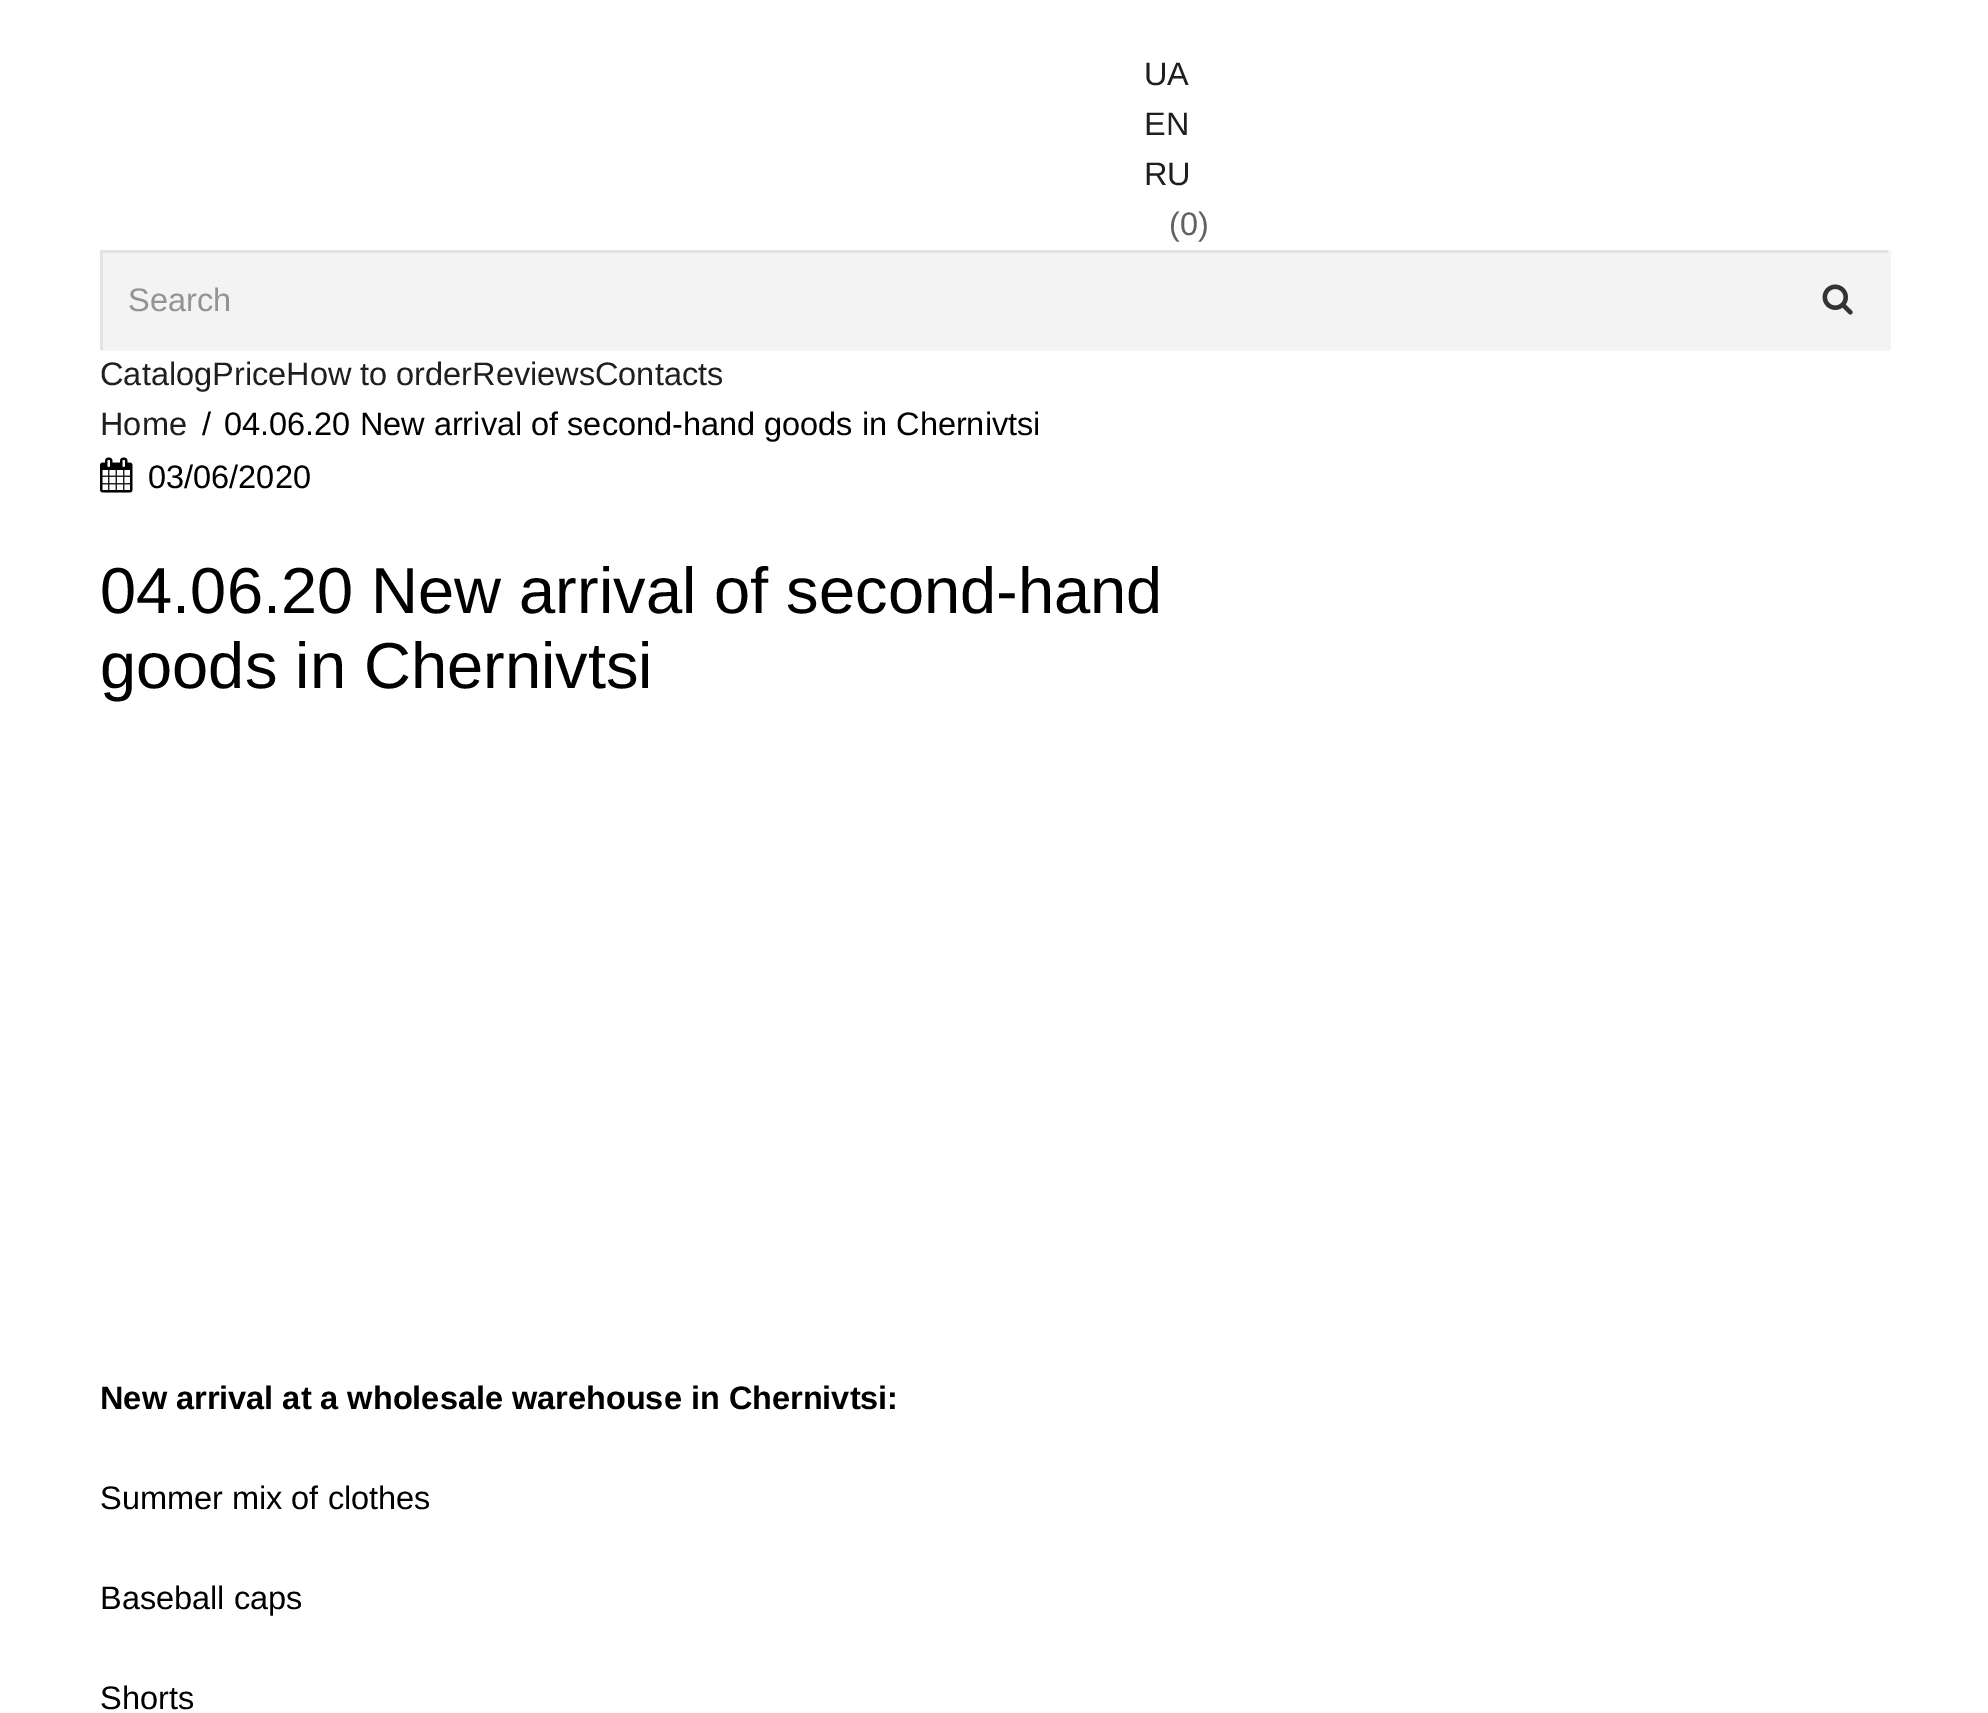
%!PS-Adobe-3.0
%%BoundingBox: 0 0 1988 1713
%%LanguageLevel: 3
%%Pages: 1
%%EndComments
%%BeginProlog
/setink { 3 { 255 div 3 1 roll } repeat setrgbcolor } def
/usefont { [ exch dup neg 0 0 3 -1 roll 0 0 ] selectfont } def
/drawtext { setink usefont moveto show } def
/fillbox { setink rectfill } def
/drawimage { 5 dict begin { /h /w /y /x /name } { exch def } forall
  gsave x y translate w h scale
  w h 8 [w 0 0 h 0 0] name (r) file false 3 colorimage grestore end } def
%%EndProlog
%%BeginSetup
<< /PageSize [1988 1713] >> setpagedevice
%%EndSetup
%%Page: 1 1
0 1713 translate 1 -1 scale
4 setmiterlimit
0 0 1988 1713 255 255 255 fillbox
(UA) 1144 85 /LiberationSans-Regular 32.5 31 31 31 drawtext
(EN) 1144 135 /LiberationSans-Regular 32.5 31 31 31 drawtext
(RU) 1144 185 /LiberationSans-Regular 32.5 31 31 31 drawtext
(\(0\)) 1169 235 /LiberationSans-Regular 32.5 98 98 98 drawtext
103 253 1785 95 243 243 243 fillbox
100 250 1790 3 227 227 227 fillbox
1888 250 3 100 243 243 243 fillbox
100 348 1790 3 243 243 243 fillbox
100 250 3 100 227 227 227 fillbox
(Search) 128 311 /LiberationSans-Regular 32.5 147 147 147 drawtext
(assets/img1.rgb) 1822 284 31 31 drawimage
(CatalogPriceHow to orderReviewsContacts) 100 385 /LiberationSans-Regular 32.5 31 31 31 drawtext
(Home) 100 435 /LiberationSans-Regular 32.5 31 31 31 drawtext
(/) 202 435 /LiberationSans-Regular 32.5 0 0 0 drawtext
(04.06.20 New arrival of second-hand goods in Chernivtsi) 224 435 /LiberationSans-Regular 32.5 0 0 0 drawtext
(assets/img2.rgb) 100 457 33 36 drawimage
(03/06/2020) 148 488 /LiberationSans-Regular 32.5 0 0 0 drawtext
(04.06.20 New arrival of second-hand) 100 613 /LiberationSans-Regular 65 0 0 0 drawtext
(goods in Chernivtsi) 100 688 /LiberationSans-Regular 65 0 0 0 drawtext
(New arrival at a wholesale warehouse in Chernivtsi:) 100 1409 /LiberationSans-Bold 32.5 0 0 0 drawtext
(Summer mix of clothes) 100 1509 /LiberationSans-Regular 32.5 0 0 0 drawtext
(Baseball caps) 100 1609 /LiberationSans-Regular 32.5 0 0 0 drawtext
(Shorts) 100 1709 /LiberationSans-Regular 32.5 0 0 0 drawtext
showpage
%%EOF
